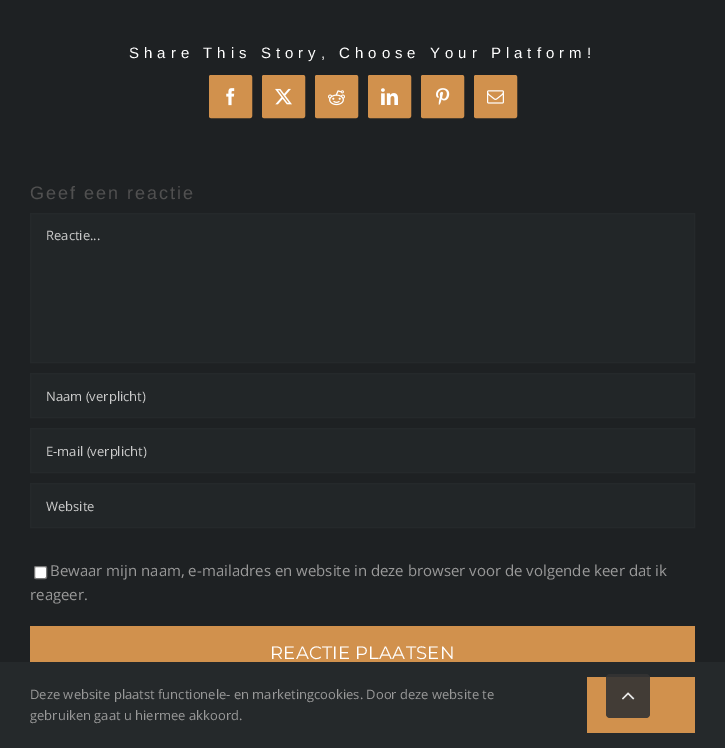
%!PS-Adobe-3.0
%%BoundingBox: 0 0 725 748
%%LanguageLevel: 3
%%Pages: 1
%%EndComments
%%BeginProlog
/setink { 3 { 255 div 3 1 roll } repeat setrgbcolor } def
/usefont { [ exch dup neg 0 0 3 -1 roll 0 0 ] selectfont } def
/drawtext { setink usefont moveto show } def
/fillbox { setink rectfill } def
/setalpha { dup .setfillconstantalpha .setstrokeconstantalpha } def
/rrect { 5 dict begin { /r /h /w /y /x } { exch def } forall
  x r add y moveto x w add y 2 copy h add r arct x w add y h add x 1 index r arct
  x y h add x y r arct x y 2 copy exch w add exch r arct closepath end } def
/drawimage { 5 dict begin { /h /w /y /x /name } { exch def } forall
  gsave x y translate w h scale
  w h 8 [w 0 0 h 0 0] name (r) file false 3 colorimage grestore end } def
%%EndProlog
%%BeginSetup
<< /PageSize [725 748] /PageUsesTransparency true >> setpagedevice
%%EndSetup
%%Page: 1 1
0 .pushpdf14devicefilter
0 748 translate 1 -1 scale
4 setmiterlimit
0 0 725 748 30 33 35 fillbox
/LiberationSans-Regular 15 usefont
255 255 255 setink
129 58 moveto 5 0 (Share This Story, Choose Your Platform!) ashow
209 145 77 setink
209.5 75.5 42 42 1.5 rrect gsave fill grestore
stroke
(assets/img1.rgb) 226 88 9 18 drawimage
262.5 75.5 42 42 1.5 rrect gsave fill grestore
stroke
(assets/img2.rgb) 275 88 17 17 drawimage
315.5 75.5 42 42 1.5 rrect gsave fill grestore
stroke
(assets/img3.rgb) 328 90 17 16 drawimage
368.5 75.5 42 42 1.5 rrect gsave fill grestore
stroke
(assets/img4.rgb) 381 88 17 17 drawimage
421.5 75.5 42 42 1.5 rrect gsave fill grestore
stroke
(assets/img5.rgb) 436 88 14 17 drawimage
474.5 75.5 42 42 1.5 rrect gsave fill grestore
stroke
(assets/img6.rgb) 487 90 17 14 drawimage
/LiberationSans-Regular 18 usefont
80 80 80 setink
30 199 moveto 2 0 (Geef een reactie) ashow
34 38 40 setink
30.5 213.5 moveto 694.5 213.5 lineto 694.5 362.5 lineto 30.5 362.5 lineto closepath gsave fill grestore
37 41 43 setink
stroke
(Reactie...) 46 240 /OpenSans-Regular 13 204 204 204 drawtext
34 38 40 setink
30.5 373.5 moveto 694.5 373.5 lineto 694.5 417.5 lineto 30.5 417.5 lineto closepath gsave fill grestore
37 41 43 setink
stroke
(Naam \(verplicht\)) 46 401 /OpenSans-Regular 13 204 204 204 drawtext
34 38 40 setink
30.5 428.5 moveto 694.5 428.5 lineto 694.5 472.5 lineto 30.5 472.5 lineto closepath gsave fill grestore
37 41 43 setink
stroke
(E-mail \(verplicht\)) 46 456 /OpenSans-Regular 13 204 204 204 drawtext
34 38 40 setink
30.5 483.5 moveto 694.5 483.5 lineto 694.5 527.5 lineto 30.5 527.5 lineto closepath gsave fill grestore
37 41 43 setink
stroke
(Website) 46 511 /OpenSans-Regular 13 204 204 204 drawtext
255 255 255 setink
34.5 566.5 12 12 1.5 rrect gsave fill grestore
118 118 118 setink
stroke
(Bewaar mijn naam, e-mailadres en website in deze browser voor de volgende keer dat ik) 50 576 /OpenSans-Regular 15 153 153 153 drawtext
(reageer.) 30 600 /OpenSans-Regular 15 153 153 153 drawtext
30 626 665 36 209 145 77 fillbox
/Montserrat-Regular 18 usefont
255 255 255 setink
270 659 moveto 0.25 0 (REACTIE PLAATSEN) ashow
0 662 725 86 37 41 43 fillbox
(Deze website plaatst functionele- en marketingcookies. Door deze website te) 30 699 /OpenSans-Regular 13 153 153 153 drawtext
(gebruiken gaat u hiermee akkoord.) 30 720 /OpenSans-Regular 13 153 153 153 drawtext
587 677 108 56 209 145 77 fillbox
0.9 setalpha
51 51 51 setink
606 674 44 44 4 rrect fill
1 setalpha
(assets/img7.rgb) 622 692 13 8 drawimage
.poppdf14devicefilter showpage
%%EOF
